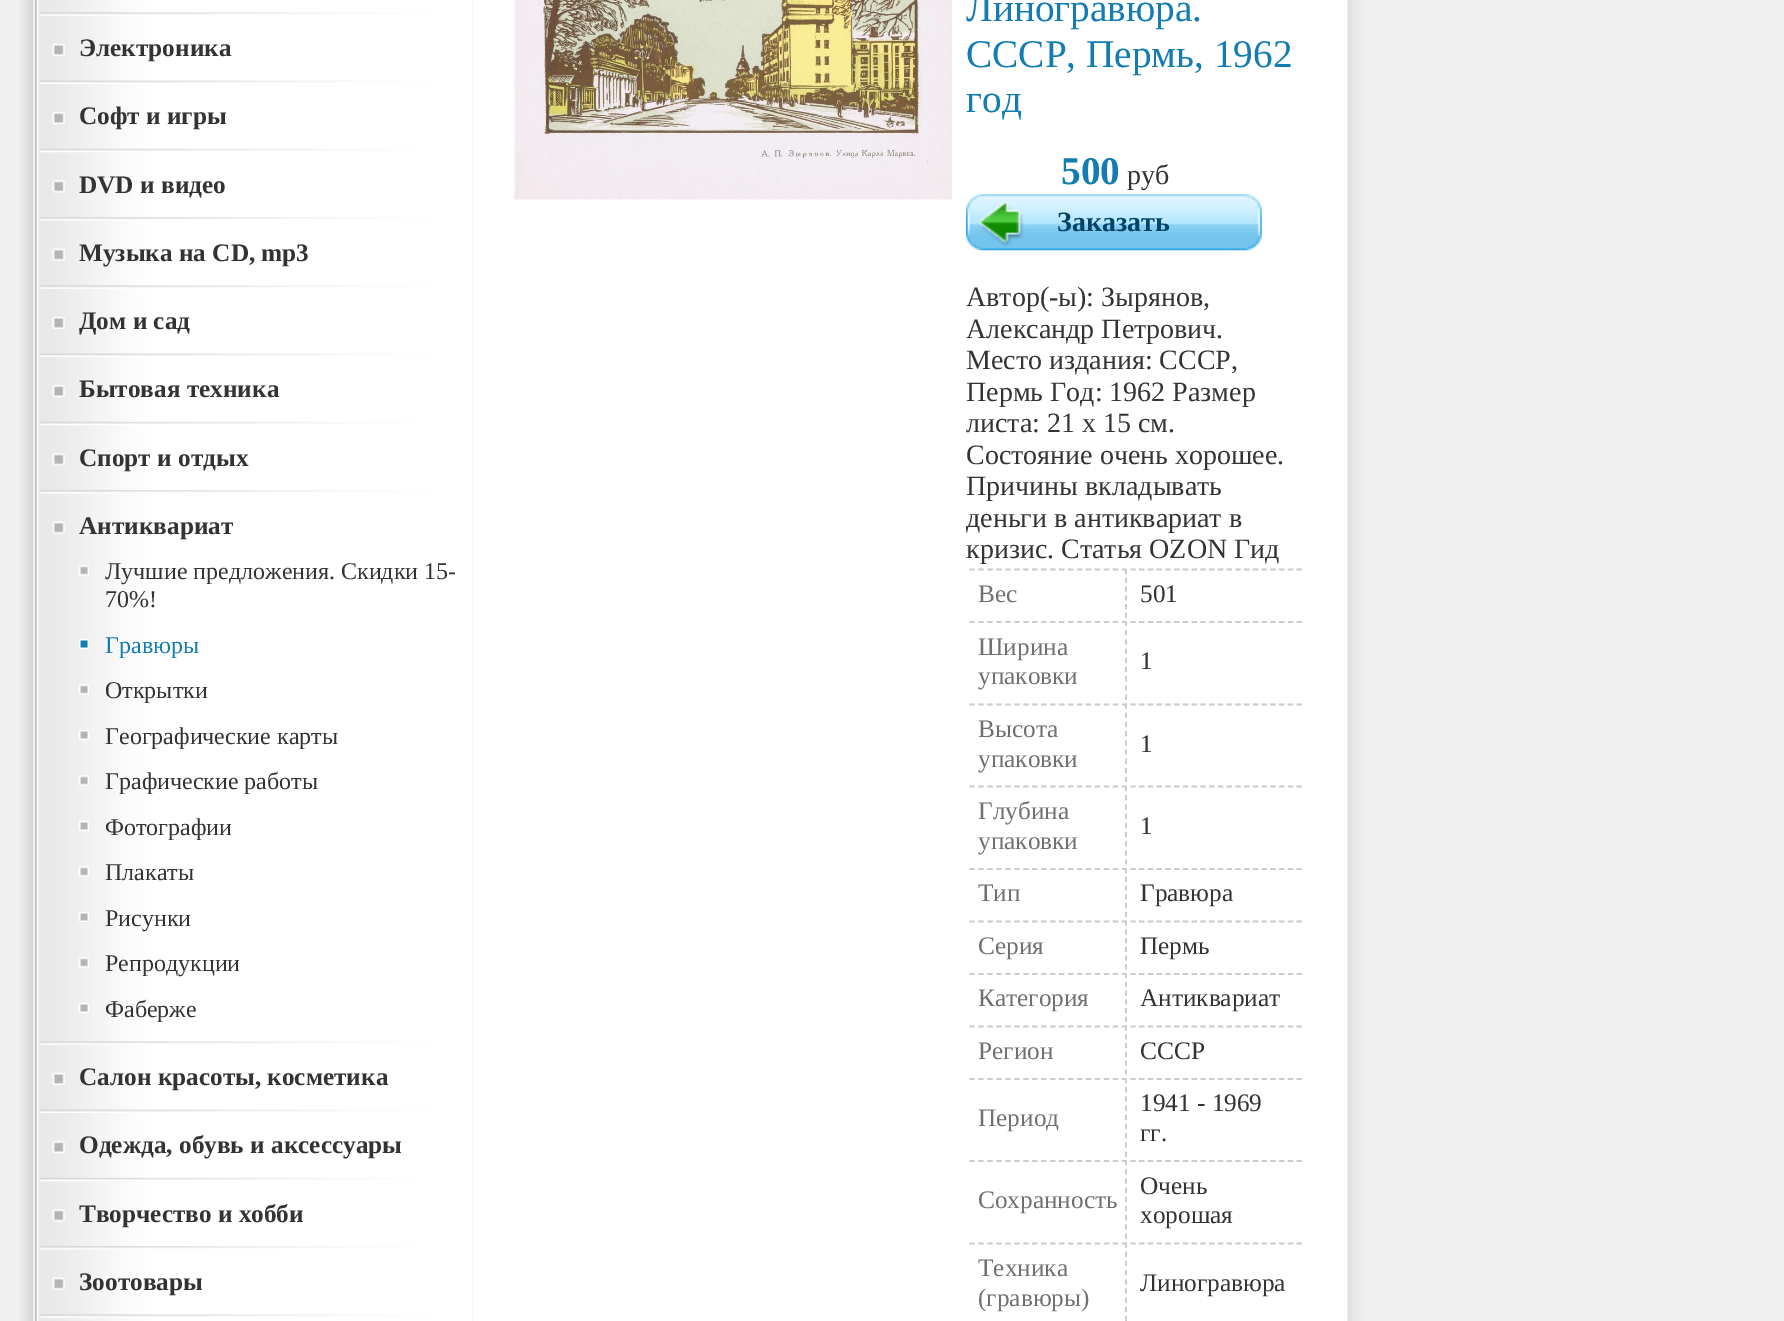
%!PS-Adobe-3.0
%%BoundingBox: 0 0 1784 1321
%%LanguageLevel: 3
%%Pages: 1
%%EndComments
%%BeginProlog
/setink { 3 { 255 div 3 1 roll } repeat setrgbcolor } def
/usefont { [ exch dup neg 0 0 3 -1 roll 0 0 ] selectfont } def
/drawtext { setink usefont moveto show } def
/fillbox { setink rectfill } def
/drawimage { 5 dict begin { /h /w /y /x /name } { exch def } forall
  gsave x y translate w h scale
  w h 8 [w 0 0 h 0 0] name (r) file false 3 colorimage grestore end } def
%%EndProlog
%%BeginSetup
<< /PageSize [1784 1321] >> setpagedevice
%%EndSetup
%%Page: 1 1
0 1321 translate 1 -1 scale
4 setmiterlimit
0 0 1784 1321 255 255 255 fillbox
(assets/img1.rgb) 0 0 473 1321 drawimage
(assets/img2.rgb) 20 0 453 1321 drawimage
(assets/img3.rgb) 40 12 433 4 drawimage
(assets/img4.rgb) 52 43 13 13 drawimage
(Электроника) 79 56 /LiberationSerif-Bold 25.25 51 51 51 drawtext
(assets/img5.rgb) 40 80 433 4 drawimage
(assets/img6.rgb) 52 112 13 13 drawimage
(Софт и игры) 79 124 /LiberationSerif-Bold 25.25 51 51 51 drawtext
(assets/img7.rgb) 40 148 433 5 drawimage
(assets/img8.rgb) 52 180 13 13 drawimage
(DVD и видео) 79 193 /LiberationSerif-Bold 25.25 51 51 51 drawtext
(assets/img9.rgb) 40 217 433 4 drawimage
(assets/img10.rgb) 52 248 13 13 drawimage
(Музыка на CD, mp3) 79 261 /LiberationSerif-Bold 25.25 51 51 51 drawtext
(assets/img3.rgb) 40 285 433 4 drawimage
(assets/img4.rgb) 52 316 13 13 drawimage
(Дом и сад) 79 329 /LiberationSerif-Bold 25.25 51 51 51 drawtext
(assets/img5.rgb) 40 353 433 4 drawimage
(assets/img6.rgb) 52 385 13 13 drawimage
(Бытовая техника) 79 397 /LiberationSerif-Bold 25.25 51 51 51 drawtext
(assets/img7.rgb) 40 421 433 5 drawimage
(assets/img8.rgb) 52 453 13 13 drawimage
(Спорт и отдых) 79 466 /LiberationSerif-Bold 25.25 51 51 51 drawtext
(assets/img9.rgb) 40 490 433 4 drawimage
(assets/img10.rgb) 52 521 13 13 drawimage
(Антиквариат) 79 534 /LiberationSerif-Bold 25.25 51 51 51 drawtext
(assets/img11.rgb) 78 565 11 11 drawimage
(Лучшие предложения. Скидки 15-) 105 579 /LiberationSerif-Regular 24 51 51 51 drawtext
(70%!) 105 607 /LiberationSerif-Regular 24 51 51 51 drawtext
(assets/img12.rgb) 78 638 11 12 drawimage
(Гравюры) 105 653 /LiberationSerif-Regular 24 18 124 179 drawtext
(assets/img11.rgb) 78 684 11 11 drawimage
(Открытки) 105 698 /LiberationSerif-Regular 24 51 51 51 drawtext
(assets/img13.rgb) 78 729 11 12 drawimage
(Географические карты) 105 744 /LiberationSerif-Regular 24 51 51 51 drawtext
(assets/img11.rgb) 78 775 11 11 drawimage
(Графические работы) 105 789 /LiberationSerif-Regular 24 51 51 51 drawtext
(assets/img13.rgb) 78 820 11 12 drawimage
(Фотографии) 105 835 /LiberationSerif-Regular 24 51 51 51 drawtext
(assets/img11.rgb) 78 866 11 11 drawimage
(Плакаты) 105 880 /LiberationSerif-Regular 24 51 51 51 drawtext
(assets/img13.rgb) 78 911 11 12 drawimage
(Рисунки) 105 926 /LiberationSerif-Regular 24 51 51 51 drawtext
(assets/img11.rgb) 78 957 11 11 drawimage
(Репродукции) 105 971 /LiberationSerif-Regular 24 51 51 51 drawtext
(assets/img13.rgb) 78 1002 11 12 drawimage
(Фаберже) 105 1017 /LiberationSerif-Regular 24 51 51 51 drawtext
(assets/img3.rgb) 40 1041 433 4 drawimage
(assets/img4.rgb) 52 1072 13 13 drawimage
(Салон красоты, косметика) 79 1085 /LiberationSerif-Bold 25.25 51 51 51 drawtext
(assets/img5.rgb) 40 1109 433 4 drawimage
(assets/img6.rgb) 52 1141 13 13 drawimage
(Одежда, обувь и аксессуары) 79 1153 /LiberationSerif-Bold 25.25 51 51 51 drawtext
(assets/img7.rgb) 40 1177 433 5 drawimage
(assets/img8.rgb) 52 1209 13 13 drawimage
(Творчество и хобби) 79 1222 /LiberationSerif-Bold 25.25 51 51 51 drawtext
(assets/img9.rgb) 40 1246 433 4 drawimage
(assets/img10.rgb) 52 1277 13 13 drawimage
(Зоотовары) 79 1290 /LiberationSerif-Bold 25.25 51 51 51 drawtext
(assets/img3.rgb) 40 1314 433 4 drawimage
(assets/img14.rgb) 514 0 438 200 drawimage
(Линогравюра.) 966 21 /LiberationSerif-Regular 39.25 18 124 179 drawtext
(СССР, Пермь, 1962) 966 67 /LiberationSerif-Regular 39.25 18 124 179 drawtext
(год) 966 112 /LiberationSerif-Regular 39.25 18 124 179 drawtext
(500) 1061 184 /LiberationSerif-Bold 39.25 18 124 179 drawtext
(руб) 1127 184 /LiberationSerif-Regular 28 51 51 51 drawtext
(assets/img15.rgb) 966 194 296 57 drawimage
(Заказать) 1057 231 /LiberationSerif-Bold 28 0 68 103 drawtext
(Автор\(-ы\): Зырянов,) 966 306 /LiberationSerif-Regular 28 51 51 51 drawtext
(Александр Петрович.) 966 338 /LiberationSerif-Regular 28 51 51 51 drawtext
(Место издания: СССР,) 966 369 /LiberationSerif-Regular 28 51 51 51 drawtext
(Пермь Год: 1962 Размер) 966 401 /LiberationSerif-Regular 28 51 51 51 drawtext
(листа: 21 х 15 см.) 966 432 /LiberationSerif-Regular 28 51 51 51 drawtext
(Состояние очень хорошее.) 966 464 /LiberationSerif-Regular 28 51 51 51 drawtext
(Причины вкладывать) 966 495 /LiberationSerif-Regular 28 51 51 51 drawtext
(деньги в антиквариат в) 966 527 /LiberationSerif-Regular 28 51 51 51 drawtext
(кризис. Статья OZON Гид) 966 558 /LiberationSerif-Regular 28 51 51 51 drawtext
204 204 204 setink
1.8 setlinewidth
[5.25 3.71] 0 setdash
969.5 569.5 moveto 1127 569.5 lineto stroke
[5.25 3.5] 0 setdash
1126 569 moveto 1126 618 lineto stroke
(Вес) 978 602 /LiberationSerif-Regular 25.25 112 112 112 drawtext
204 204 204 setink
1130.5 569.5 moveto 1302 569.5 lineto stroke
(501) 1140 602 /LiberationSerif-Regular 25.25 51 51 51 drawtext
204 204 204 setink
[5.25 3.71] 0 setdash
969.5 622 moveto 1127 622 lineto stroke
[5.25 3.94] 0 setdash
1126 621 moveto 1126 700 lineto stroke
(Ширина) 978 655 /LiberationSerif-Regular 25.25 112 112 112 drawtext
(упаковки) 978 684 /LiberationSerif-Regular 25.25 112 112 112 drawtext
204 204 204 setink
[5.25 3.5] 0 setdash
1130.5 622 moveto 1302 622 lineto stroke
(1) 1140 669 /LiberationSerif-Regular 25.25 51 51 51 drawtext
204 204 204 setink
[5.25 3.71] 0 setdash
969.5 704.5 moveto 1127 704.5 lineto stroke
[5.25 3.94] 0 setdash
1126 703.5 moveto 1126 782 lineto stroke
(Высота) 978 737 /LiberationSerif-Regular 25.25 112 112 112 drawtext
(упаковки) 978 767 /LiberationSerif-Regular 25.25 112 112 112 drawtext
204 204 204 setink
[5.25 3.5] 0 setdash
1130.5 704.5 moveto 1302 704.5 lineto stroke
(1) 1140 752 /LiberationSerif-Regular 25.25 51 51 51 drawtext
204 204 204 setink
[5.25 3.71] 0 setdash
969.5 786.5 moveto 1127 786.5 lineto stroke
[5.25 3.94] 0 setdash
1126 786 moveto 1126 864.5 lineto stroke
(Глубина) 978 819 /LiberationSerif-Regular 25.25 112 112 112 drawtext
(упаковки) 978 849 /LiberationSerif-Regular 25.25 112 112 112 drawtext
204 204 204 setink
[5.25 3.5] 0 setdash
1130.5 786.5 moveto 1302 786.5 lineto stroke
(1) 1140 834 /LiberationSerif-Regular 25.25 51 51 51 drawtext
204 204 204 setink
[5.25 3.71] 0 setdash
969.5 869 moveto 1127 869 lineto stroke
[5.25 3.5] 0 setdash
1126 868 moveto 1126 917 lineto stroke
(Тип) 978 901 /LiberationSerif-Regular 25.25 112 112 112 drawtext
204 204 204 setink
1130.5 869 moveto 1302 869 lineto stroke
(Гравюра) 1140 901 /LiberationSerif-Regular 25.25 51 51 51 drawtext
204 204 204 setink
[5.25 3.71] 0 setdash
969.5 921.5 moveto 1127 921.5 lineto stroke
[5.25 3.5] 0 setdash
1126 920.5 moveto 1126 969.5 lineto stroke
(Серия) 978 954 /LiberationSerif-Regular 25.25 112 112 112 drawtext
204 204 204 setink
1130.5 921.5 moveto 1302 921.5 lineto stroke
(Пермь) 1140 954 /LiberationSerif-Regular 25.25 51 51 51 drawtext
204 204 204 setink
[5.25 3.71] 0 setdash
969.5 974 moveto 1127 974 lineto stroke
[5.25 3.5] 0 setdash
1126 973 moveto 1126 1022 lineto stroke
(Категория) 978 1006 /LiberationSerif-Regular 25.25 112 112 112 drawtext
204 204 204 setink
1130.5 974 moveto 1302 974 lineto stroke
(Антиквариат) 1140 1006 /LiberationSerif-Regular 25.25 51 51 51 drawtext
204 204 204 setink
[5.25 3.71] 0 setdash
969.5 1026.5 moveto 1127 1026.5 lineto stroke
[5.25 3.5] 0 setdash
1126 1025.5 moveto 1126 1074.5 lineto stroke
(Регион) 978 1059 /LiberationSerif-Regular 25.25 112 112 112 drawtext
204 204 204 setink
1130.5 1026.5 moveto 1302 1026.5 lineto stroke
(СССР) 1140 1059 /LiberationSerif-Regular 25.25 51 51 51 drawtext
204 204 204 setink
[5.25 3.71] 0 setdash
969.5 1079 moveto 1127 1079 lineto stroke
[5.25 3.94] 0 setdash
1126 1078 moveto 1126 1157 lineto stroke
(Период) 978 1126 /LiberationSerif-Regular 25.25 112 112 112 drawtext
204 204 204 setink
[5.25 3.5] 0 setdash
1130.5 1079 moveto 1302 1079 lineto stroke
(1941 - 1969) 1140 1111 /LiberationSerif-Regular 25.25 51 51 51 drawtext
(гг.) 1140 1141 /LiberationSerif-Regular 25.25 51 51 51 drawtext
204 204 204 setink
[5.25 3.71] 0 setdash
969.5 1161 moveto 1127 1161 lineto stroke
[5.25 3.94] 0 setdash
1126 1160 moveto 1126 1239 lineto stroke
(Сохранность) 978 1208 /LiberationSerif-Regular 25.25 112 112 112 drawtext
204 204 204 setink
[5.25 3.5] 0 setdash
1130.5 1161 moveto 1302 1161 lineto stroke
(Очень) 1140 1194 /LiberationSerif-Regular 25.25 51 51 51 drawtext
(хорошая) 1140 1223 /LiberationSerif-Regular 25.25 51 51 51 drawtext
204 204 204 setink
[5.25 3.71] 0 setdash
969.5 1243.5 moveto 1127 1243.5 lineto stroke
[5.25 3.94] 0 setdash
1126 1242.5 moveto 1126 1321 lineto stroke
(Техника) 978 1276 /LiberationSerif-Regular 25.25 112 112 112 drawtext
(\(гравюры\)) 978 1306 /LiberationSerif-Regular 25.25 112 112 112 drawtext
204 204 204 setink
[5.25 3.5] 0 setdash
1130.5 1243.5 moveto 1302 1243.5 lineto stroke
(Линогравюра) 1140 1291 /LiberationSerif-Regular 25.25 51 51 51 drawtext
(assets/img16.rgb) 1347 0 437 1321 drawimage
showpage
%%EOF
